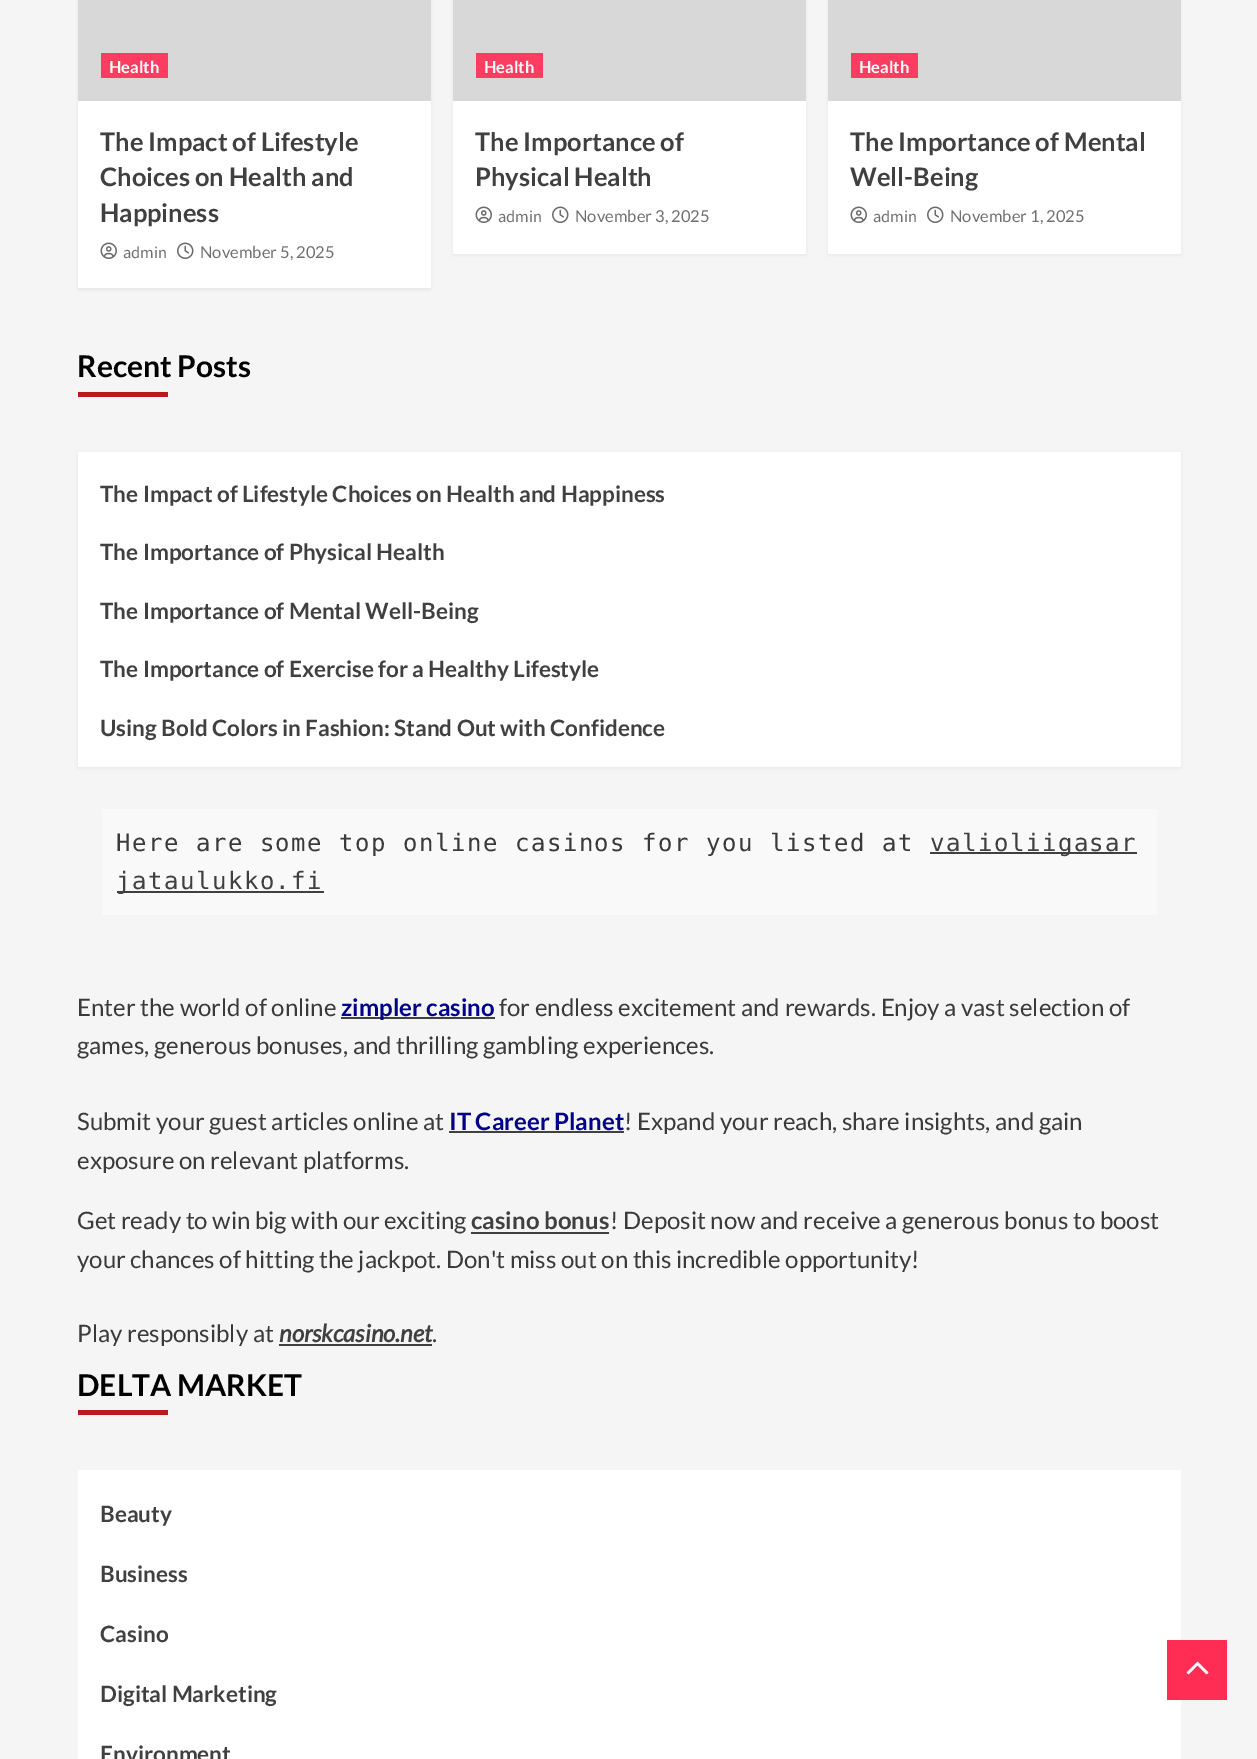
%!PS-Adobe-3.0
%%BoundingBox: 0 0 1257 1759
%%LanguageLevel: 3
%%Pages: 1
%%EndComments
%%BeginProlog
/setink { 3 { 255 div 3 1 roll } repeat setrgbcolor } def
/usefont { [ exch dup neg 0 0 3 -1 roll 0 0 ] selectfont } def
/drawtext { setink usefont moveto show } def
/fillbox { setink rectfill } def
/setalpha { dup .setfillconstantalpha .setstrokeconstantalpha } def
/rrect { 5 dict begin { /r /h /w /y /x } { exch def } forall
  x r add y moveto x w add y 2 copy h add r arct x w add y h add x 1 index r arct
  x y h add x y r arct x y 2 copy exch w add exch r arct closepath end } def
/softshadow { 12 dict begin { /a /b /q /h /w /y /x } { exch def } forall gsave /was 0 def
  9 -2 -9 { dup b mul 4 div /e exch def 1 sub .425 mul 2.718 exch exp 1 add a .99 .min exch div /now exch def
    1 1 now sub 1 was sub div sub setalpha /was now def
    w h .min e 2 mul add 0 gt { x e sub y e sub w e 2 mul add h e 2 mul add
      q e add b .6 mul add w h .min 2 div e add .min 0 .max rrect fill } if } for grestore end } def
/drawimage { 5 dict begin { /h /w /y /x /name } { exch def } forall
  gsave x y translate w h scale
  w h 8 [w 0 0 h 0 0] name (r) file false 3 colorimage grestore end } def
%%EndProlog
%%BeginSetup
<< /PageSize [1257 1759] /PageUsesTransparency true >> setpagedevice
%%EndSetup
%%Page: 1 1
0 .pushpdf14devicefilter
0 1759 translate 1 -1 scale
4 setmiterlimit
0 0 1257 1759 245 245 245 fillbox
0 0 0 setink
78 -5 353 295 0 1.5 0.05 softshadow
78 101 353 187 255 255 255 fillbox
78 0 353 101 216 216 216 fillbox
101 53 67 25 251 61 97 fillbox
(Health) 109 73 /Lato-Bold 16.5 251 251 251 drawtext
(The Impact of Lifestyle) 100 151 /Lato-Bold 25.5 64 64 64 drawtext
(Choices on Health and) 100 186 /Lato-Bold 25.5 64 64 64 drawtext
(Happiness) 100 222 /Lato-Bold 25.5 64 64 64 drawtext
(assets/img1.rgb) 100 242 17 17 drawimage
(admin) 123 258 /SourceSansPro-Regular 16.5 112 112 112 drawtext
(assets/img2.rgb) 177 242 17 17 drawimage
(November 5, 2025) 200 258 /Lato-Regular 16.5 112 112 112 drawtext
0 0 0 setink
453 -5 353 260 0 1.5 0.05 softshadow
453 101 353 153 255 255 255 fillbox
453 0 353 101 216 216 216 fillbox
476 53 67 25 251 61 97 fillbox
(Health) 484 73 /Lato-Bold 16.5 251 251 251 drawtext
(The Importance of) 475 151 /Lato-Bold 25.5 64 64 64 drawtext
(Physical Health) 475 186 /Lato-Bold 25.5 64 64 64 drawtext
(assets/img1.rgb) 475 206 17 17 drawimage
(admin) 498 222 /SourceSansPro-Regular 16.5 112 112 112 drawtext
(assets/img2.rgb) 552 206 17 17 drawimage
(November 3, 2025) 575 222 /Lato-Regular 16.5 112 112 112 drawtext
0 0 0 setink
828 -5 353 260 0 1.5 0.05 softshadow
828 101 353 153 255 255 255 fillbox
828 0 353 101 216 216 216 fillbox
851 53 67 25 251 61 97 fillbox
(Health) 859 73 /Lato-Bold 16.5 251 251 251 drawtext
(The Importance of Mental) 850 151 /Lato-Bold 25.5 64 64 64 drawtext
(Well-Being) 850 186 /Lato-Bold 25.5 64 64 64 drawtext
(assets/img1.rgb) 850 206 17 17 drawimage
(admin) 873 222 /SourceSansPro-Regular 16.5 112 112 112 drawtext
(assets/img2.rgb) 927 206 17 17 drawimage
(November 1, 2025) 950 222 /Lato-Regular 16.5 112 112 112 drawtext
(Recent Posts) 77 377 /Lato-Bold 30 0 0 0 drawtext
78 392 90 5 187 25 25 fillbox
0 0 0 setink
78 453 1103 315 0 1.5 0.05 softshadow
78 452 1103 315 255 255 255 fillbox
(The Impact of Lifestyle Choices on Health and Happiness) 100 502 /Lato-Bold 22.5 64 64 64 drawtext
(The Importance of Physical Health) 100 560 /Lato-Bold 22.5 64 64 64 drawtext
(The Importance of Mental Well-Being) 100 619 /Lato-Bold 22.5 64 64 64 drawtext
(The Importance of Exercise for a Healthy Lifestyle) 100 677 /Lato-Bold 22.5 64 64 64 drawtext
(Using Bold Colors in Fashion: Stand Out with Confidence) 100 736 /Lato-Bold 22.5 64 64 64 drawtext
102 809 1055 106 249 249 249 fillbox
/DejaVuSansMono-Regular 24 usefont
58 58 58 setink
116 851 moveto 1.5 0 (Here are some top online casinos for you listed at) ashow
930 852 207 2 64 64 64 fillbox
930 851 moveto 1.5 0 (valioliigasar) ashow
117 891 207 2 64 64 64 fillbox
116 889 moveto 1.5 0 (jataulukko.fi) ashow
(Enter the world of online) 77 1016 /Lato-Regular 24 58 58 58 drawtext
341 1017 154 2 64 64 64 fillbox
(zimpler casino) 341 1016 /Lato-Bold 24 0 0 139 drawtext
(for endless excitement and rewards. Enjoy a vast selection of) 499 1016 /Lato-Regular 24 58 58 58 drawtext
(games, generous bonuses, and thrilling gambling experiences.) 77 1054 /Lato-Regular 24 58 58 58 drawtext
(Submit your guest articles online at) 77 1130 /Lato-Regular 24 58 58 58 drawtext
(IT Career Planet) 449 1130 /Lato-Bold 24 0 0 139 drawtext
449 1131 175 2 64 64 64 fillbox
(! Expand your reach, share insights, and gain) 624 1130 /Lato-Regular 24 58 58 58 drawtext
(exposure on relevant platforms.) 77 1169 /Lato-Regular 24 58 58 58 drawtext
(Get ready to win big with our exciting) 77 1229 /Lato-Regular 24 58 58 58 drawtext
(casino bonus) 471 1229 /Lato-Bold 24 64 64 64 drawtext
471 1232 138 2 64 64 64 fillbox
(! Deposit now and receive a generous bonus to boost) 610 1229 /Lato-Regular 24 58 58 58 drawtext
(your chances of hitting the jackpot. Don't miss out on this incredible opportunity!) 77 1268 /Lato-Regular 24 58 58 58 drawtext
(Play responsibly at) 77 1342 /Lato-Regular 24 58 58 58 drawtext
(norskcasino.net) 279 1342 /Lato-BoldItalic 24 64 64 64 drawtext
279 1344 153 2 64 64 64 fillbox
(.) 432 1342 /Lato-Regular 24 58 58 58 drawtext
(DELTA MARKET) 77 1396 /Lato-Bold 30 0 0 0 drawtext
78 1410 90 5 187 25 25 fillbox
78 1470 1103 289 255 255 255 fillbox
(Beauty) 100 1522 /Lato-Bold 22.5 64 64 64 drawtext
(Business) 100 1582 /Lato-Bold 22.5 64 64 64 drawtext
(Casino) 100 1642 /Lato-Bold 22.5 64 64 64 drawtext
(Digital Marketing) 100 1702 /Lato-Bold 22.5 64 64 64 drawtext
(Environment) 100 1762 /Lato-Bold 22.5 64 64 64 drawtext
1167 1640 60 60 255 44 84 fillbox
(assets/img3.rgb) 1186 1661 23 14 drawimage
.poppdf14devicefilter showpage
%%EOF
